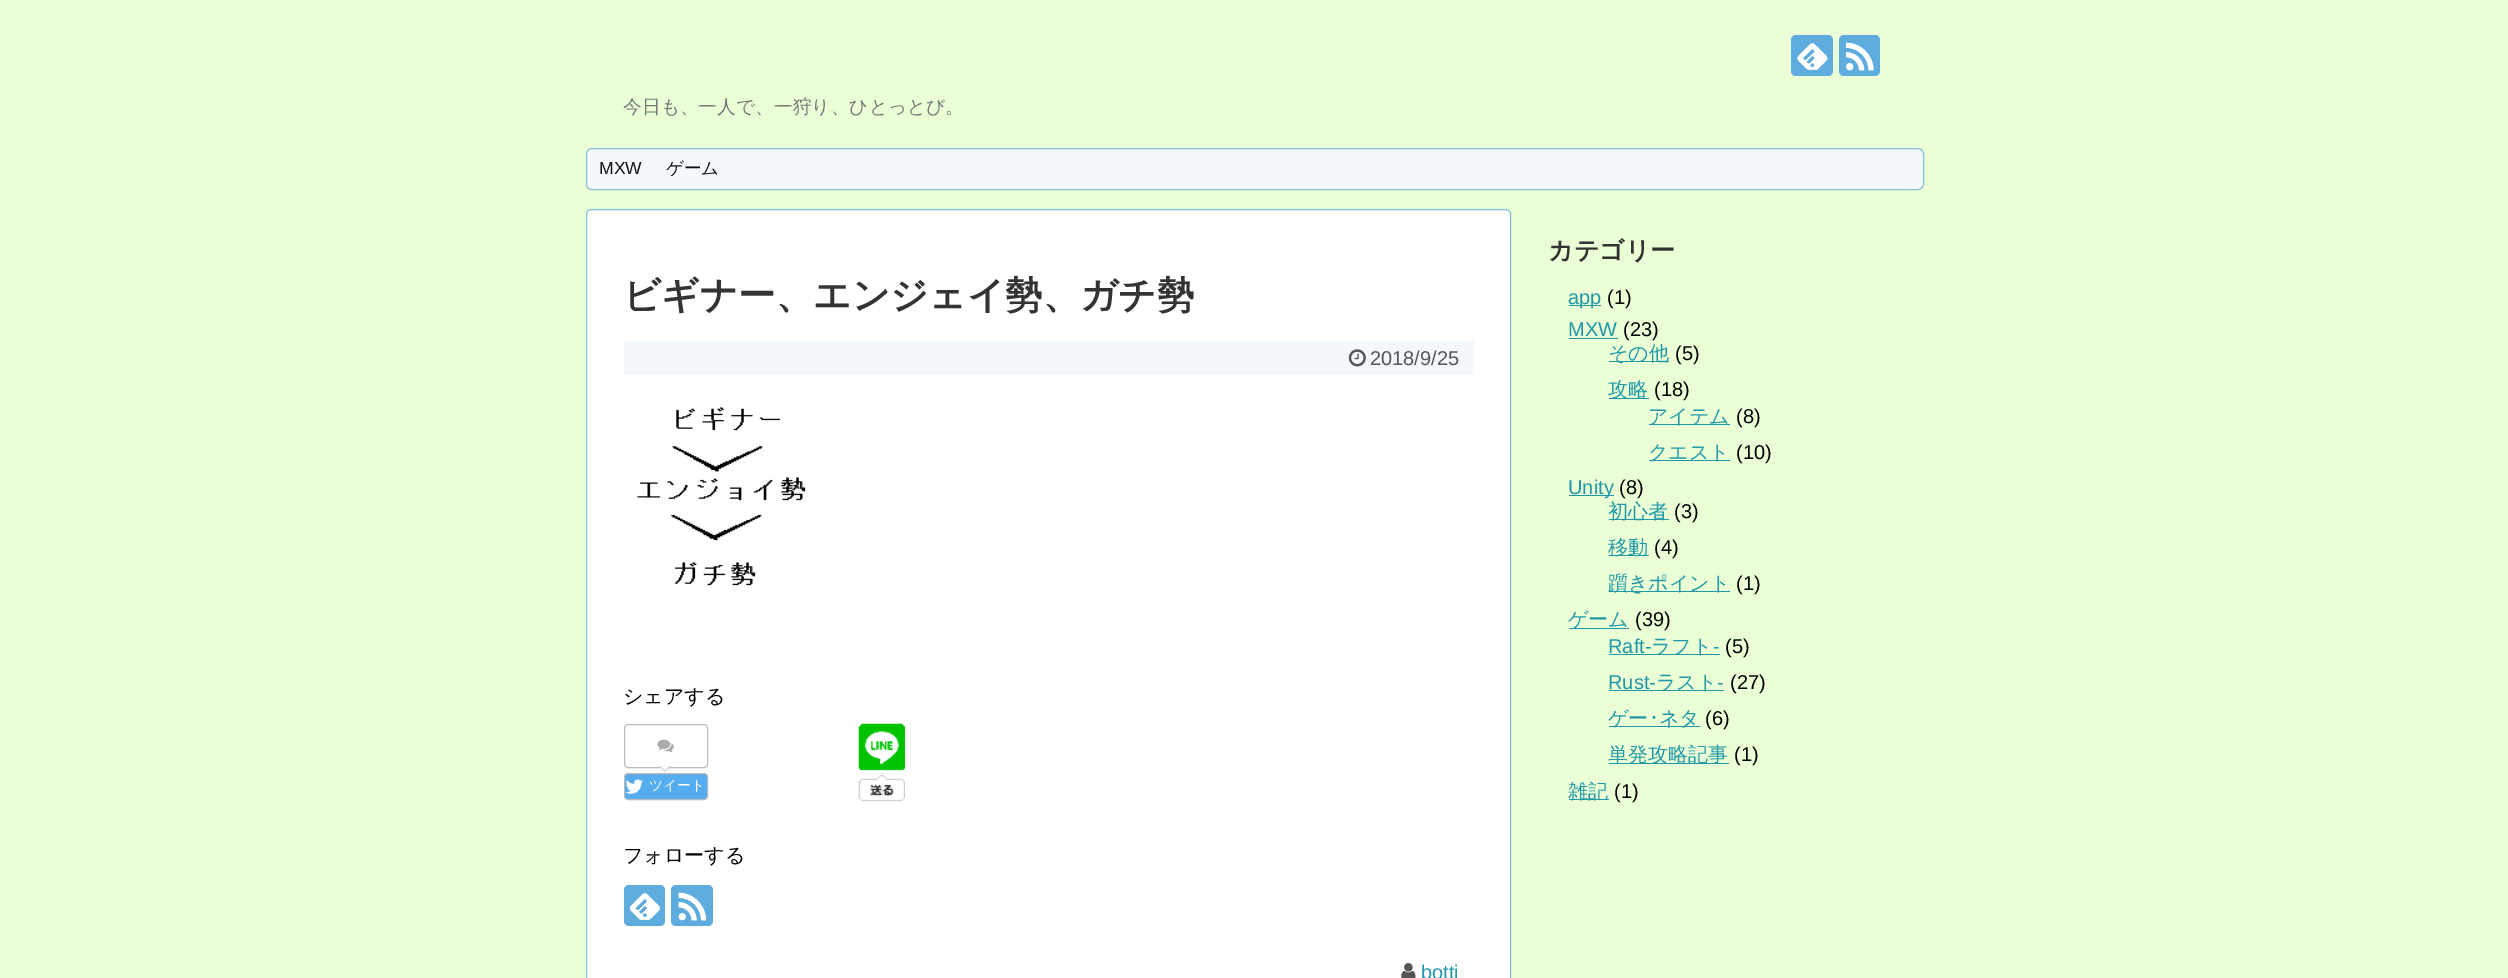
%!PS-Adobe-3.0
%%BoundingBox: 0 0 2508 978
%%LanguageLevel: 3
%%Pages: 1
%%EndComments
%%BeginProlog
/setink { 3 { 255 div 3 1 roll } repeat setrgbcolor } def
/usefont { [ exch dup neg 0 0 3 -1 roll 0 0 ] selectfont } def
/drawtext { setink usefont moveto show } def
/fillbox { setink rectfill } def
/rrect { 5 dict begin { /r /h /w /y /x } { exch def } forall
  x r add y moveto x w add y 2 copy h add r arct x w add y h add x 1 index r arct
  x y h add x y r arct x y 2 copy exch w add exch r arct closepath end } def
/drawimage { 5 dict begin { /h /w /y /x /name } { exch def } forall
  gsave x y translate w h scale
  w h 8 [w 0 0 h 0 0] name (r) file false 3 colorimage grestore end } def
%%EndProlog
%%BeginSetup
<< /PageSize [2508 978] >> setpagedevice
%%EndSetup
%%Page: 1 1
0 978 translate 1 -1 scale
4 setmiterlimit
0 0 2508 978 235 255 214 fillbox
93 172 221 setink
1791 35 42 41 5 rrect fill
(assets/img1.rgb) 1797 43 31 27 drawimage
1839 35 41 41 5 rrect fill
(assets/img2.rgb) 1846 42 28 29 drawimage
(今日も、一人で、一狩り、ひとっとび。) 623 113 /WenQuanYiZenHei-Medium 18.75 119 119 119 drawtext
242 248 252 setink
586.5 148.5 1337 41 5.5 rrect gsave fill grestore
137 189 222 setink
stroke
(MXW) 599 174 /LiberationSans-Regular 17.5 17 17 17 drawtext
(ゲーム) 666 174 /WenQuanYiZenHei-Medium 17.5 17 17 17 drawtext
255 255 255 setink
586.5 209.5 924 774 4.5 rrect gsave fill grestore
137 189 222 setink
stroke
(ビギナー、エンジェイ勢、ガチ勢) 623 308 /WenQuanYiZenHei-Bold 37.5 51 51 51 drawtext
624 341 850 34 242 248 252 fillbox
(assets/img3.rgb) 1348 349 18 18 drawimage
(2018/9/25) 1370 365 /LiberationSans-Regular 20 85 85 85 drawtext
(assets/img4.rgb) 637 407 169 179 drawimage
(シェアする) 623 703 /WenQuanYiZenHei-Medium 20 0 0 0 drawtext
187 187 187 setink
624.5 724.5 83 43 3.5 rrect stroke
(assets/img5.rgb) 657 739 17 14 drawimage
221 221 221 setink
659 766 moveto 671 766 lineto 665 772.5 lineto closepath fill
255 255 255 setink
661 766 moveto 669 766 lineto 665 770 lineto closepath fill
85 172 238 setink
624.5 773.5 83 26 3.5 rrect gsave fill grestore
187 187 187 setink
stroke
(assets/img6.rgb) 625 779 18 15 drawimage
(ツイート) 649 790 /WenQuanYiZenHei-Medium 13.75 255 255 255 drawtext
(assets/img7.rgb) 858 723 47 79 drawimage
(フォローする) 623 862 /WenQuanYiZenHei-Medium 20 0 0 0 drawtext
93 172 221 setink
624 885 41 41 5 rrect fill
(assets/img8.rgb) 629 893 31 27 drawimage
671 885 42 41 5 rrect fill
(assets/img9.rgb) 678 892 29 29 drawimage
(assets/img10.rgb) 1401 963 15 15 drawimage
(botti) 1421 979 /LiberationSans-Regular 20 32 152 168 drawtext
(カテゴリー) 1548 259 /WenQuanYiZenHei-Bold 25 51 51 51 drawtext
1569 305 32 1 32 152 168 fillbox
(app) 1568 304 /LiberationSans-Regular 20 32 152 168 drawtext
(\(1\)) 1607 304 /LiberationSans-Regular 20 0 0 0 drawtext
(MXW) 1568 336 /LiberationSans-Regular 20 32 152 168 drawtext
1569 338 49 1 32 152 168 fillbox
(\(23\)) 1623 336 /LiberationSans-Regular 20 0 0 0 drawtext
1609 361 60 1 32 152 168 fillbox
(その他) 1608 360 /WenQuanYiZenHei-Medium 20 32 152 168 drawtext
(\(5\)) 1675 360 /LiberationSans-Regular 20 0 0 0 drawtext
1609 398 40 1 32 152 168 fillbox
(攻略) 1608 396 /WenQuanYiZenHei-Medium 20 32 152 168 drawtext
(\(18\)) 1654 396 /LiberationSans-Regular 20 0 0 0 drawtext
1649 424 81 1 32 152 168 fillbox
(アイテム) 1648 423 /WenQuanYiZenHei-Medium 20 32 152 168 drawtext
(\(8\)) 1736 423 /LiberationSans-Regular 20 0 0 0 drawtext
1649 460 81 1 32 152 168 fillbox
(クエスト) 1648 459 /WenQuanYiZenHei-Medium 20 32 152 168 drawtext
(\(10\)) 1736 459 /LiberationSans-Regular 20 0 0 0 drawtext
1569 495 45 1 32 152 168 fillbox
(Unity) 1568 494 /LiberationSans-Regular 20 32 152 168 drawtext
(\(8\)) 1619 494 /LiberationSans-Regular 20 0 0 0 drawtext
1609 519 60 1 32 152 168 fillbox
(初心者) 1608 518 /WenQuanYiZenHei-Medium 20 32 152 168 drawtext
(\(3\)) 1674 518 /LiberationSans-Regular 20 0 0 0 drawtext
1609 555 40 1 32 152 168 fillbox
(移動) 1608 554 /WenQuanYiZenHei-Medium 20 32 152 168 drawtext
(\(4\)) 1654 554 /LiberationSans-Regular 20 0 0 0 drawtext
1609 591 121 1 32 152 168 fillbox
(躓きポイント) 1608 590 /WenQuanYiZenHei-Medium 20 32 152 168 drawtext
(\(1\)) 1736 590 /LiberationSans-Regular 20 0 0 0 drawtext
1569 628 60 1 32 152 168 fillbox
(ゲーム) 1568 626 /WenQuanYiZenHei-Medium 20 32 152 168 drawtext
(\(39\)) 1635 626 /LiberationSans-Regular 20 0 0 0 drawtext
(Raft-) 1608 653 /LiberationSans-Regular 20 32 152 168 drawtext
1609 654 111 1 32 152 168 fillbox
(ラフト) 1651 653 /WenQuanYiZenHei-Medium 20 32 152 168 drawtext
(-) 1713 653 /LiberationSans-Regular 20 32 152 168 drawtext
(\(5\)) 1725 653 /LiberationSans-Regular 20 0 0 0 drawtext
(Rust-) 1608 689 /LiberationSans-Regular 20 32 152 168 drawtext
1609 690 115 1 32 152 168 fillbox
(ラスト) 1656 689 /WenQuanYiZenHei-Medium 20 32 152 168 drawtext
(-) 1717 689 /LiberationSans-Regular 20 32 152 168 drawtext
(\(27\)) 1730 689 /LiberationSans-Regular 20 0 0 0 drawtext
1609 726 91 1 32 152 168 fillbox
(ゲー) 1608 725 /WenQuanYiZenHei-Medium 20 32 152 168 drawtext
(･) 1649 725 /IPAPGothic-Regular 20 32 152 168 drawtext
(ネタ) 1659 725 /WenQuanYiZenHei-Medium 20 32 152 168 drawtext
(\(6\)) 1705 725 /LiberationSans-Regular 20 0 0 0 drawtext
1609 763 120 1 32 152 168 fillbox
(単発攻略記事) 1608 761 /WenQuanYiZenHei-Medium 20 32 152 168 drawtext
(\(1\)) 1734 761 /LiberationSans-Regular 20 0 0 0 drawtext
1569 799 40 1 32 152 168 fillbox
(雑記) 1568 798 /WenQuanYiZenHei-Medium 20 32 152 168 drawtext
(\(1\)) 1614 798 /LiberationSans-Regular 20 0 0 0 drawtext
showpage
%%EOF
